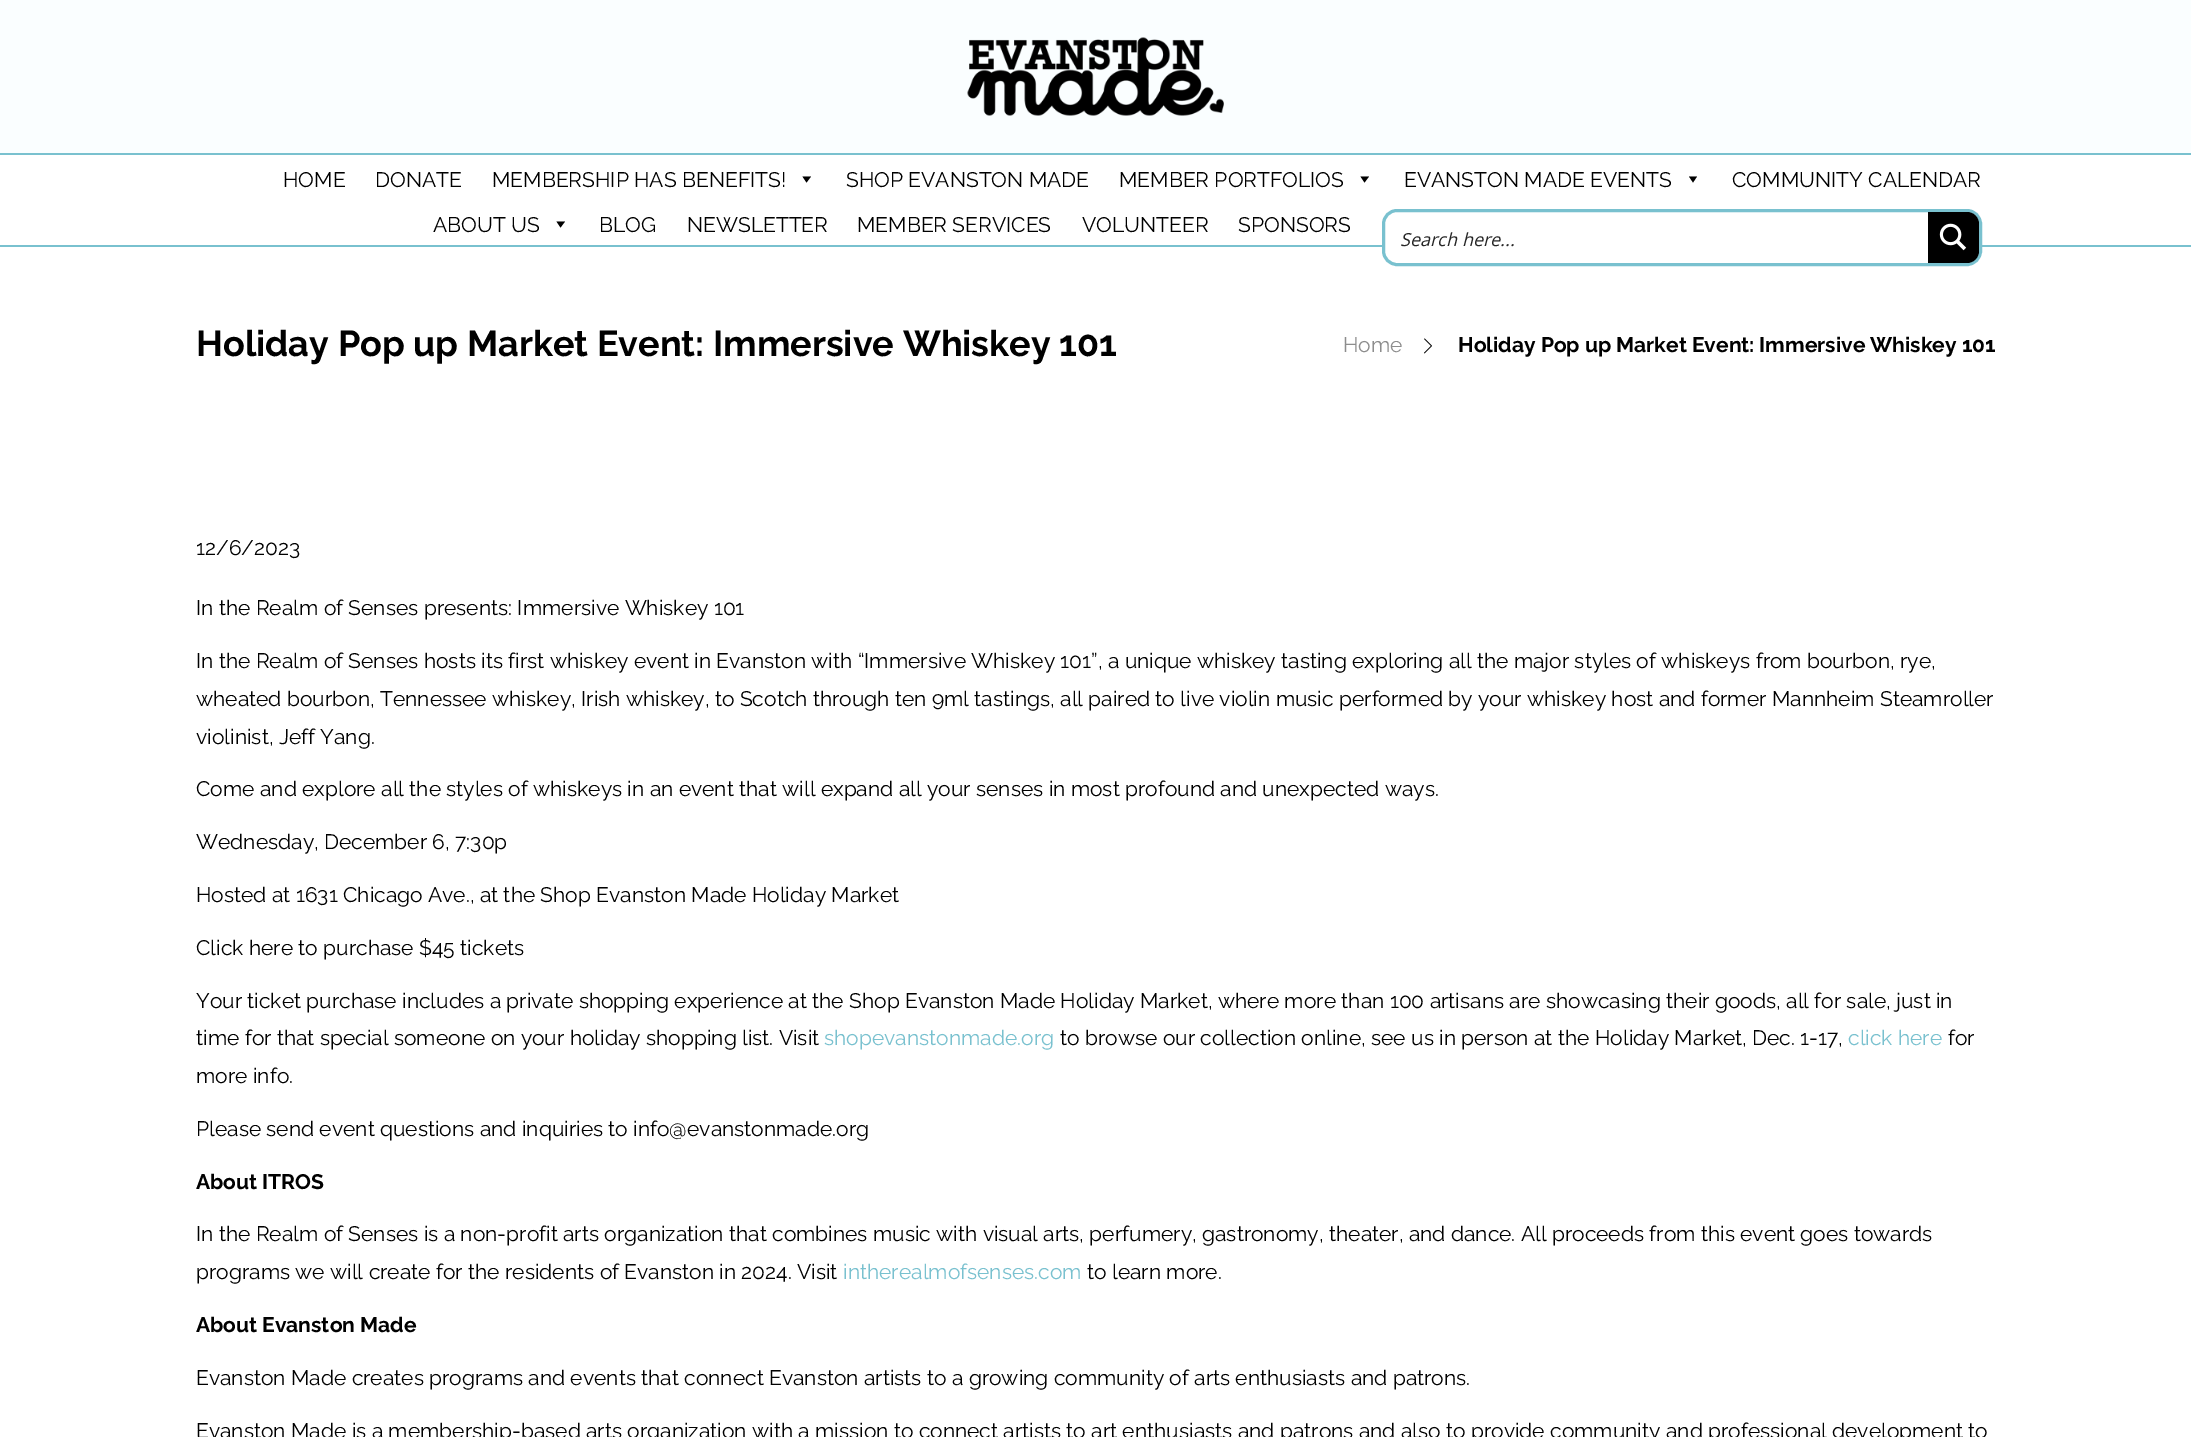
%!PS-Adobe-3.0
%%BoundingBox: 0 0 2191 1437
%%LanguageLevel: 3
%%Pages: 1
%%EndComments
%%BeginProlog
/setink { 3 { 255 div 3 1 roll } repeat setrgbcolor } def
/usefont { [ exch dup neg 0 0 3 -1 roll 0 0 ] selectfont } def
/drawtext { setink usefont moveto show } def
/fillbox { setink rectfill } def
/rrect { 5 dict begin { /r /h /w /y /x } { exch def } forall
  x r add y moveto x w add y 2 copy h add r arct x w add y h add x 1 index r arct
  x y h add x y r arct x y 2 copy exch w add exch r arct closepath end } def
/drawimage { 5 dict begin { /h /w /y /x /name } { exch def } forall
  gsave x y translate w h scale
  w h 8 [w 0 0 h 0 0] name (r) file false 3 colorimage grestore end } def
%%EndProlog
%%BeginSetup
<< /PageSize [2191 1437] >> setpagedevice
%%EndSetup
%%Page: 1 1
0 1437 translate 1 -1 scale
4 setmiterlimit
0 0 2191 1437 255 255 255 fillbox
0 0 2191 153 250 254 255 fillbox
0 153 2191 2 121 193 207 fillbox
(assets/img1.rgb) 967 37 257 79 drawimage
0 245 2191 2 121 193 207 fillbox
(HOME) 283 187 /Raleway-Regular 21 0 0 0 drawtext
(DONATE) 375 187 /Raleway-Regular 21 0 0 0 drawtext
(MEMBERSHIP HAS BENEFITS!) 492 187 /Raleway-Regular 21 0 0 0 drawtext
811 176.5 moveto 806.5 182.5 lineto 802.5 176.5 lineto closepath fill
(SHOP EVANSTON MADE) 846 187 /Raleway-Regular 21 0 0 0 drawtext
(MEMBER PORTFOLIOS) 1119 187 /Raleway-Regular 21 0 0 0 drawtext
1369 176.5 moveto 1364.5 182.5 lineto 1360.5 176.5 lineto closepath fill
(EVANSTON MADE EVENTS) 1404 187 /Raleway-Regular 21 0 0 0 drawtext
1697 176.5 moveto 1693 182.5 lineto 1689 176.5 lineto closepath fill
(COMMUNITY CALENDAR) 1732 187 /Raleway-Regular 21 0 0 0 drawtext
(ABOUT US) 433 232 /Raleway-Regular 21 0 0 0 drawtext
565 221.5 moveto 560.5 227.5 lineto 556.5 221.5 lineto closepath fill
(BLOG) 599 232 /Raleway-Regular 21 0 0 0 drawtext
(NEWSLETTER) 687 232 /Raleway-Regular 21 0 0 0 drawtext
(MEMBER SERVICES) 857 232 /Raleway-Regular 21 0 0 0 drawtext
(VOLUNTEER) 1082 232 /Raleway-Regular 21 0 0 0 drawtext
(SPONSORS) 1238 232 /Raleway-Regular 21 0 0 0 drawtext
255 255 255 setink
1383.5 210.5 597 54 13.5 rrect gsave fill grestore
121 193 207 setink
3 setlinewidth
stroke
(Search here...) 1400 246 /OpenSans-Italic 18 38 38 38 drawtext
0 0 0 setink
1928 212 moveto 1967 212 lineto 1973.5 212 1979 217.5 1979 224 curveto 1979 251 lineto 1979 257.5 1973.5 263 1967 263 curveto 1928 263 lineto closepath fill
(assets/img2.rgb) 1939 223 28 28 drawimage
(Holiday Pop up Market Event: Immersive Whiskey 101) 196 356 /Raleway-Bold 36 0 0 0 drawtext
(Home) 1343 352 /Raleway-Regular 21 141 141 141 drawtext
(assets/img3.rgb) 1424 338 8 16 drawimage
(Holiday Pop up Market Event: Immersive Whiskey 101) 1458 352 /Raleway-Bold 21 0 0 0 drawtext
(12/6/2023) 196 555 /Raleway-Regular 21 0 0 0 drawtext
(In the Realm of Senses presents: Immersive Whiskey 101) 196 615 /Raleway-Regular 21 0 0 0 drawtext
(In the Realm of Senses hosts its first whiskey event in Evanston with “Immersive Whiskey 101”, a unique whiskey tasting exploring all the major styles of whiskeys from bourbon, rye,) 196 668 /Raleway-Regular 21 0 0 0 drawtext
(wheated bourbon, Tennessee whiskey, Irish whiskey, to Scotch through ten 9ml tastings, all paired to live violin music performed by your whiskey host and former Mannheim Steamroller) 196 706 /Raleway-Regular 21 0 0 0 drawtext
(violinist, Jeff Yang.) 196 744 /Raleway-Regular 21 0 0 0 drawtext
(Come and explore all the styles of whiskeys in an event that will expand all your senses in most profound and unexpected ways.) 196 796 /Raleway-Regular 21 0 0 0 drawtext
(Wednesday, December 6, 7:30p) 196 849 /Raleway-Regular 21 0 0 0 drawtext
(Hosted at 1631 Chicago Ave., at the Shop Evanston Made Holiday Market) 196 902 /Raleway-Regular 21 0 0 0 drawtext
(Click here to purchase $45 tickets) 196 955 /Raleway-Regular 21 0 0 0 drawtext
(Your ticket purchase includes a private shopping experience at the Shop Evanston Made Holiday Market, where more than 100 artisans are showcasing their goods, all for sale, just in) 196 1008 /Raleway-Regular 21 0 0 0 drawtext
(time for that special someone on your holiday shopping list. Visit) 196 1045 /Raleway-Regular 21 0 0 0 drawtext
(shopevanstonmade.org) 824 1045 /Raleway-Regular 21 121 193 207 drawtext
(to browse our collection online, see us in person at the Holiday Market, Dec. 1-17,) 1060 1045 /Raleway-Regular 21 0 0 0 drawtext
(click here) 1848 1045 /Raleway-Regular 21 121 193 207 drawtext
(for) 1948 1045 /Raleway-Regular 21 0 0 0 drawtext
(more info.) 196 1083 /Raleway-Regular 21 0 0 0 drawtext
(Please send event questions and inquiries to info@evanstonmade.org) 196 1136 /Raleway-Regular 21 0 0 0 drawtext
(About ITROS) 196 1189 /Raleway-Bold 21 0 0 0 drawtext
(In the Realm of Senses is a non-profit arts organization that combines music with visual arts, perfumery, gastronomy, theater, and dance. All proceeds from this event goes towards) 196 1241 /Raleway-Regular 21 0 0 0 drawtext
(programs we will create for the residents of Evanston in 2024. Visit) 196 1279 /Raleway-Regular 21 0 0 0 drawtext
(intherealmofsenses.com) 843 1279 /Raleway-Regular 21 121 193 207 drawtext
(to learn more.) 1087 1279 /Raleway-Regular 21 0 0 0 drawtext
(About Evanston Made) 196 1332 /Raleway-Bold 21 0 0 0 drawtext
(Evanston Made creates programs and events that connect Evanston artists to a growing community of arts enthusiasts and patrons.) 196 1385 /Raleway-Regular 21 0 0 0 drawtext
(Evanston Made is a membership-based arts organization with a mission to connect artists to art enthusiasts and patrons and also to provide community and professional development to) 196 1438 /Raleway-Regular 21 0 0 0 drawtext
showpage
%%EOF
